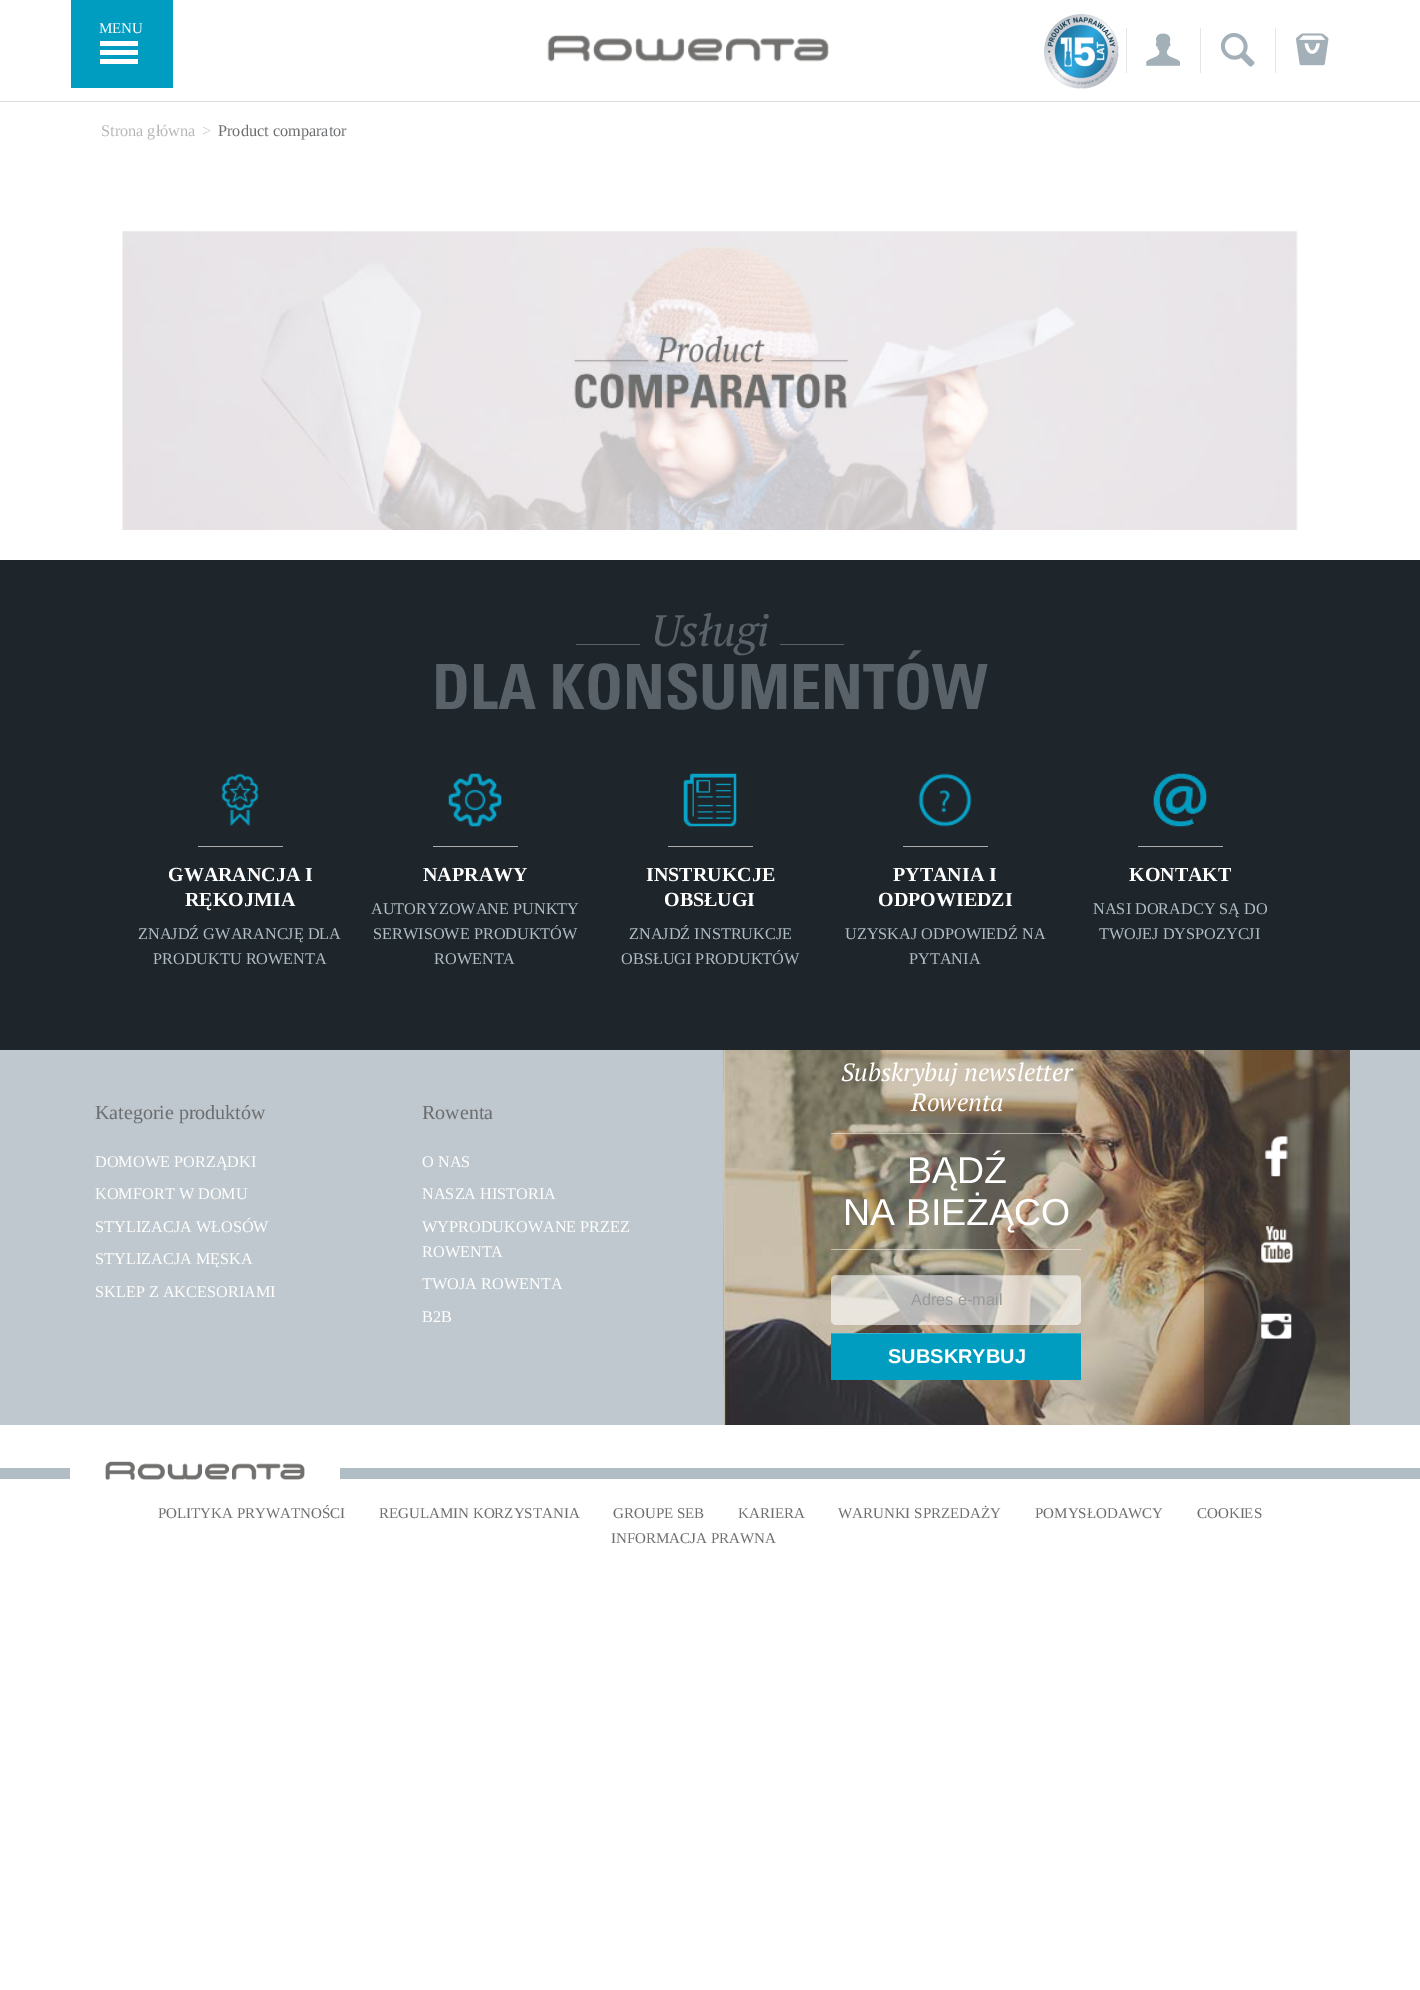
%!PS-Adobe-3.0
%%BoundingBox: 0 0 1420 1990
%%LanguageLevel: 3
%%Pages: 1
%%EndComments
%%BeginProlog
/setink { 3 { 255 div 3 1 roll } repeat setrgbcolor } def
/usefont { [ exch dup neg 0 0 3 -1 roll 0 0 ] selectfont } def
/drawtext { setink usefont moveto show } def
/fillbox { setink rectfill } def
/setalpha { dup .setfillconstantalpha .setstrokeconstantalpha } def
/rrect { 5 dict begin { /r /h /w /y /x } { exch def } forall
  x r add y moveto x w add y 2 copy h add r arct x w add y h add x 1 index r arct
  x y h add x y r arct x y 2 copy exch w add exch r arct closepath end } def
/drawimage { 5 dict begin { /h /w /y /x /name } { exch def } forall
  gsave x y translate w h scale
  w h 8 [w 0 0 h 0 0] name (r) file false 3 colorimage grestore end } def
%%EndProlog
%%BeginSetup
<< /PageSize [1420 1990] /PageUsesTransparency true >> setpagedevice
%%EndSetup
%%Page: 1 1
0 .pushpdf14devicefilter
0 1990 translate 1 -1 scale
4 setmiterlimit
0 0 1420 1990 255 255 255 fillbox
0 101 1420 1 220 222 226 fillbox
71 0 102 88 0 157 192 fillbox
(MENU) 99 33 /LiberationSerif-Regular 15 255 255 255 drawtext
100 50 38 5 255 255 255 fillbox
100 41 38 5 255 255 255 fillbox
100 59 38 5 255 255 255 fillbox
(assets/img1.rgb) 1044 14 75 75 drawimage
1126 28 1 45 228 231 234 fillbox
(assets/img2.rgb) 1146 33 34 33 drawimage
1200 28 1 45 228 231 234 fillbox
(assets/img3.rgb) 1220 33 35 34 drawimage
1275 28 1 45 228 231 234 fillbox
(assets/img4.rgb) 1296 33 33 33 drawimage
(assets/img5.rgb) 547 35 282 27 drawimage
(Strona główna) 101 136 /LiberationSerif-Regular 16.25 182 183 184 drawtext
(>) 202 136 /LiberationSerif-Regular 16.25 204 204 204 drawtext
(Product comparator) 218 136 /LiberationSerif-Regular 16.25 109 110 112 drawtext
(assets/img6.rgb) 122 231 1176 299 drawimage
0 560 1420 490 30 37 43 fillbox
576 644 64 1 89 98 105 fillbox
(Usługi) 651 646 /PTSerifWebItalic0-Italic 44 89 98 105 drawtext
780 644 64 1 89 98 105 fillbox
(DLA KONSUMENTÓW) 432 709 /Univers-Bold 62.5 89 98 105 drawtext
(assets/img7.rgb) 221 773 38 54 drawimage
198 846 85 1 173 173 173 fillbox
(GWARANCJA I) 168 881 /LiberationSerif-Bold 20 255 255 255 drawtext
(RĘKOJMIA) 185 906 /LiberationSerif-Bold 20 255 255 255 drawtext
(ZNAJDŹ GWARANCJĘ DLA) 138 939 /LiberationSerif-Regular 16.25 177 189 197 drawtext
(PRODUKTU ROWENTA) 153 964 /LiberationSerif-Regular 16.25 177 189 197 drawtext
(assets/img8.rgb) 448 773 54 54 drawimage
433 846 85 1 173 173 173 fillbox
(NAPRAWY) 423 881 /LiberationSerif-Bold 20 255 255 255 drawtext
(AUTORYZOWANE PUNKTY) 371 914 /LiberationSerif-Regular 16.25 177 189 197 drawtext
(SERWISOWE PRODUKTÓW) 373 939 /LiberationSerif-Regular 16.25 177 189 197 drawtext
(ROWENTA) 434 964 /LiberationSerif-Regular 16.25 177 189 197 drawtext
(assets/img9.rgb) 683 773 54 54 drawimage
668 846 85 1 173 173 173 fillbox
(INSTRUKCJE) 646 881 /LiberationSerif-Bold 20 255 255 255 drawtext
(OBSŁUGI) 664 906 /LiberationSerif-Bold 20 255 255 255 drawtext
(ZNAJDŹ INSTRUKCJE) 629 939 /LiberationSerif-Regular 16.25 177 189 197 drawtext
(OBSŁUGI PRODUKTÓW) 621 964 /LiberationSerif-Regular 16.25 177 189 197 drawtext
(assets/img10.rgb) 918 773 54 54 drawimage
903 846 85 1 173 173 173 fillbox
(PYTANIA I) 893 881 /LiberationSerif-Bold 20 255 255 255 drawtext
(ODPOWIEDZI) 878 906 /LiberationSerif-Bold 20 255 255 255 drawtext
(UZYSKAJ ODPOWIEDŹ NA) 845 939 /LiberationSerif-Regular 16.25 177 189 197 drawtext
(PYTANIA) 909 964 /LiberationSerif-Regular 16.25 177 189 197 drawtext
(assets/img11.rgb) 1153 773 54 54 drawimage
1138 846 85 1 173 173 173 fillbox
(KONTAKT) 1129 881 /LiberationSerif-Bold 20 255 255 255 drawtext
(NASI DORADCY SĄ DO) 1093 914 /LiberationSerif-Regular 16.25 177 189 197 drawtext
(TWOJEJ DYSPOZYCJI) 1099 939 /LiberationSerif-Regular 16.25 177 189 197 drawtext
0 1050 1420 375 191 200 206 fillbox
(Kategorie produktów) 95 1119 /LiberationSerif-Regular 20 109 110 112 drawtext
(DOMOWE PORZĄDKI) 95 1167 /LiberationSerif-Regular 16.25 255 255 255 drawtext
(KOMFORT W DOMU) 95 1199 /LiberationSerif-Regular 16.25 255 255 255 drawtext
(STYLIZACJA WŁOSÓW) 95 1232 /LiberationSerif-Regular 16.25 255 255 255 drawtext
(STYLIZACJA MĘSKA) 95 1264 /LiberationSerif-Regular 16.25 255 255 255 drawtext
(SKLEP Z AKCESORIAMI) 95 1297 /LiberationSerif-Regular 16.25 255 255 255 drawtext
(Rowenta) 422 1119 /LiberationSerif-Regular 20 109 110 112 drawtext
(O NAS) 422 1167 /LiberationSerif-Regular 16.25 255 255 255 drawtext
(NASZA HISTORIA) 422 1199 /LiberationSerif-Regular 16.25 255 255 255 drawtext
(WYPRODUKOWANE PRZEZ) 422 1232 /LiberationSerif-Regular 16.25 255 255 255 drawtext
(ROWENTA) 422 1257 /LiberationSerif-Regular 16.25 255 255 255 drawtext
(TWOJA ROWENTA) 422 1289 /LiberationSerif-Regular 16.25 255 255 255 drawtext
(B2B) 422 1322 /LiberationSerif-Regular 16.25 255 255 255 drawtext
(assets/img12.rgb) 723 1050 627 375 drawimage
(Subskrybuj newsletter) 841 1081 /PTSerifWebItalic0-Italic 25 255 255 255 drawtext
(Rowenta) 911 1111 /PTSerifWebItalic0-Italic 25 255 255 255 drawtext
0.5 setalpha
831 1133 250 1 255 255 255 fillbox
831 1249 250 1 255 255 255 fillbox
1 setalpha
(BĄDŹ) 907 1183 /LiberationSans-Regular 37.5 255 255 255 drawtext
(NA BIEŻĄCO) 843 1225 /LiberationSans-Regular 37.5 255 255 255 drawtext
0.6 setalpha
831 1275 250 50 5 rrect fill
0.07 setalpha
0 0 0 setink
836 1276 moveto 1076 1276 lineto 1079 1276 1081 1278 1081 1281 curveto 1081 1280 lineto 1081 1277 1079 1275 1076 1275 curveto 836 1275 lineto 833 1275 831 1277 831 1280 curveto 831 1281 lineto 831 1278 833 1276 836 1276 curveto closepath fill
1 setalpha
(Adres e-mail) 911 1305 /LiberationSans-Regular 16.25 153 153 153 drawtext
831 1334 250 46 0 157 192 fillbox
831 1333 250 1 51 177 205 fillbox
(SUBSKRYBUJ) 888 1363 /LiberationSans-Bold 20 255 255 255 drawtext
0.3 setalpha
1204 1050 146 375 35 35 35 fillbox
1 setalpha
(assets/img13.rgb) 1264 1136 24 41 drawimage
(assets/img14.rgb) 1261 1226 32 37 drawimage
(assets/img15.rgb) 1261 1313 31 26 drawimage
0 1468 1420 11 177 189 197 fillbox
70 1468 270 11 255 255 255 fillbox
(assets/img16.rgb) 105 1461 200 19 drawimage
(POLITYKA PRYWATNOŚCI) 158 1518 /LiberationSerif-Regular 15 109 110 112 drawtext
(REGULAMIN KORZYSTANIA) 379 1518 /LiberationSerif-Regular 15 109 110 112 drawtext
(GROUPE SEB) 613 1518 /LiberationSerif-Regular 15 109 110 112 drawtext
(KARIERA) 738 1518 /LiberationSerif-Regular 15 109 110 112 drawtext
(WARUNKI SPRZEDAŻY) 838 1518 /LiberationSerif-Regular 15 109 110 112 drawtext
(POMYSŁODAWCY) 1035 1518 /LiberationSerif-Regular 15 109 110 112 drawtext
(COOKIES) 1197 1518 /LiberationSerif-Regular 15 109 110 112 drawtext
(INFORMACJA PRAWNA) 611 1543 /LiberationSerif-Regular 15 109 110 112 drawtext
.poppdf14devicefilter showpage
%%EOF
